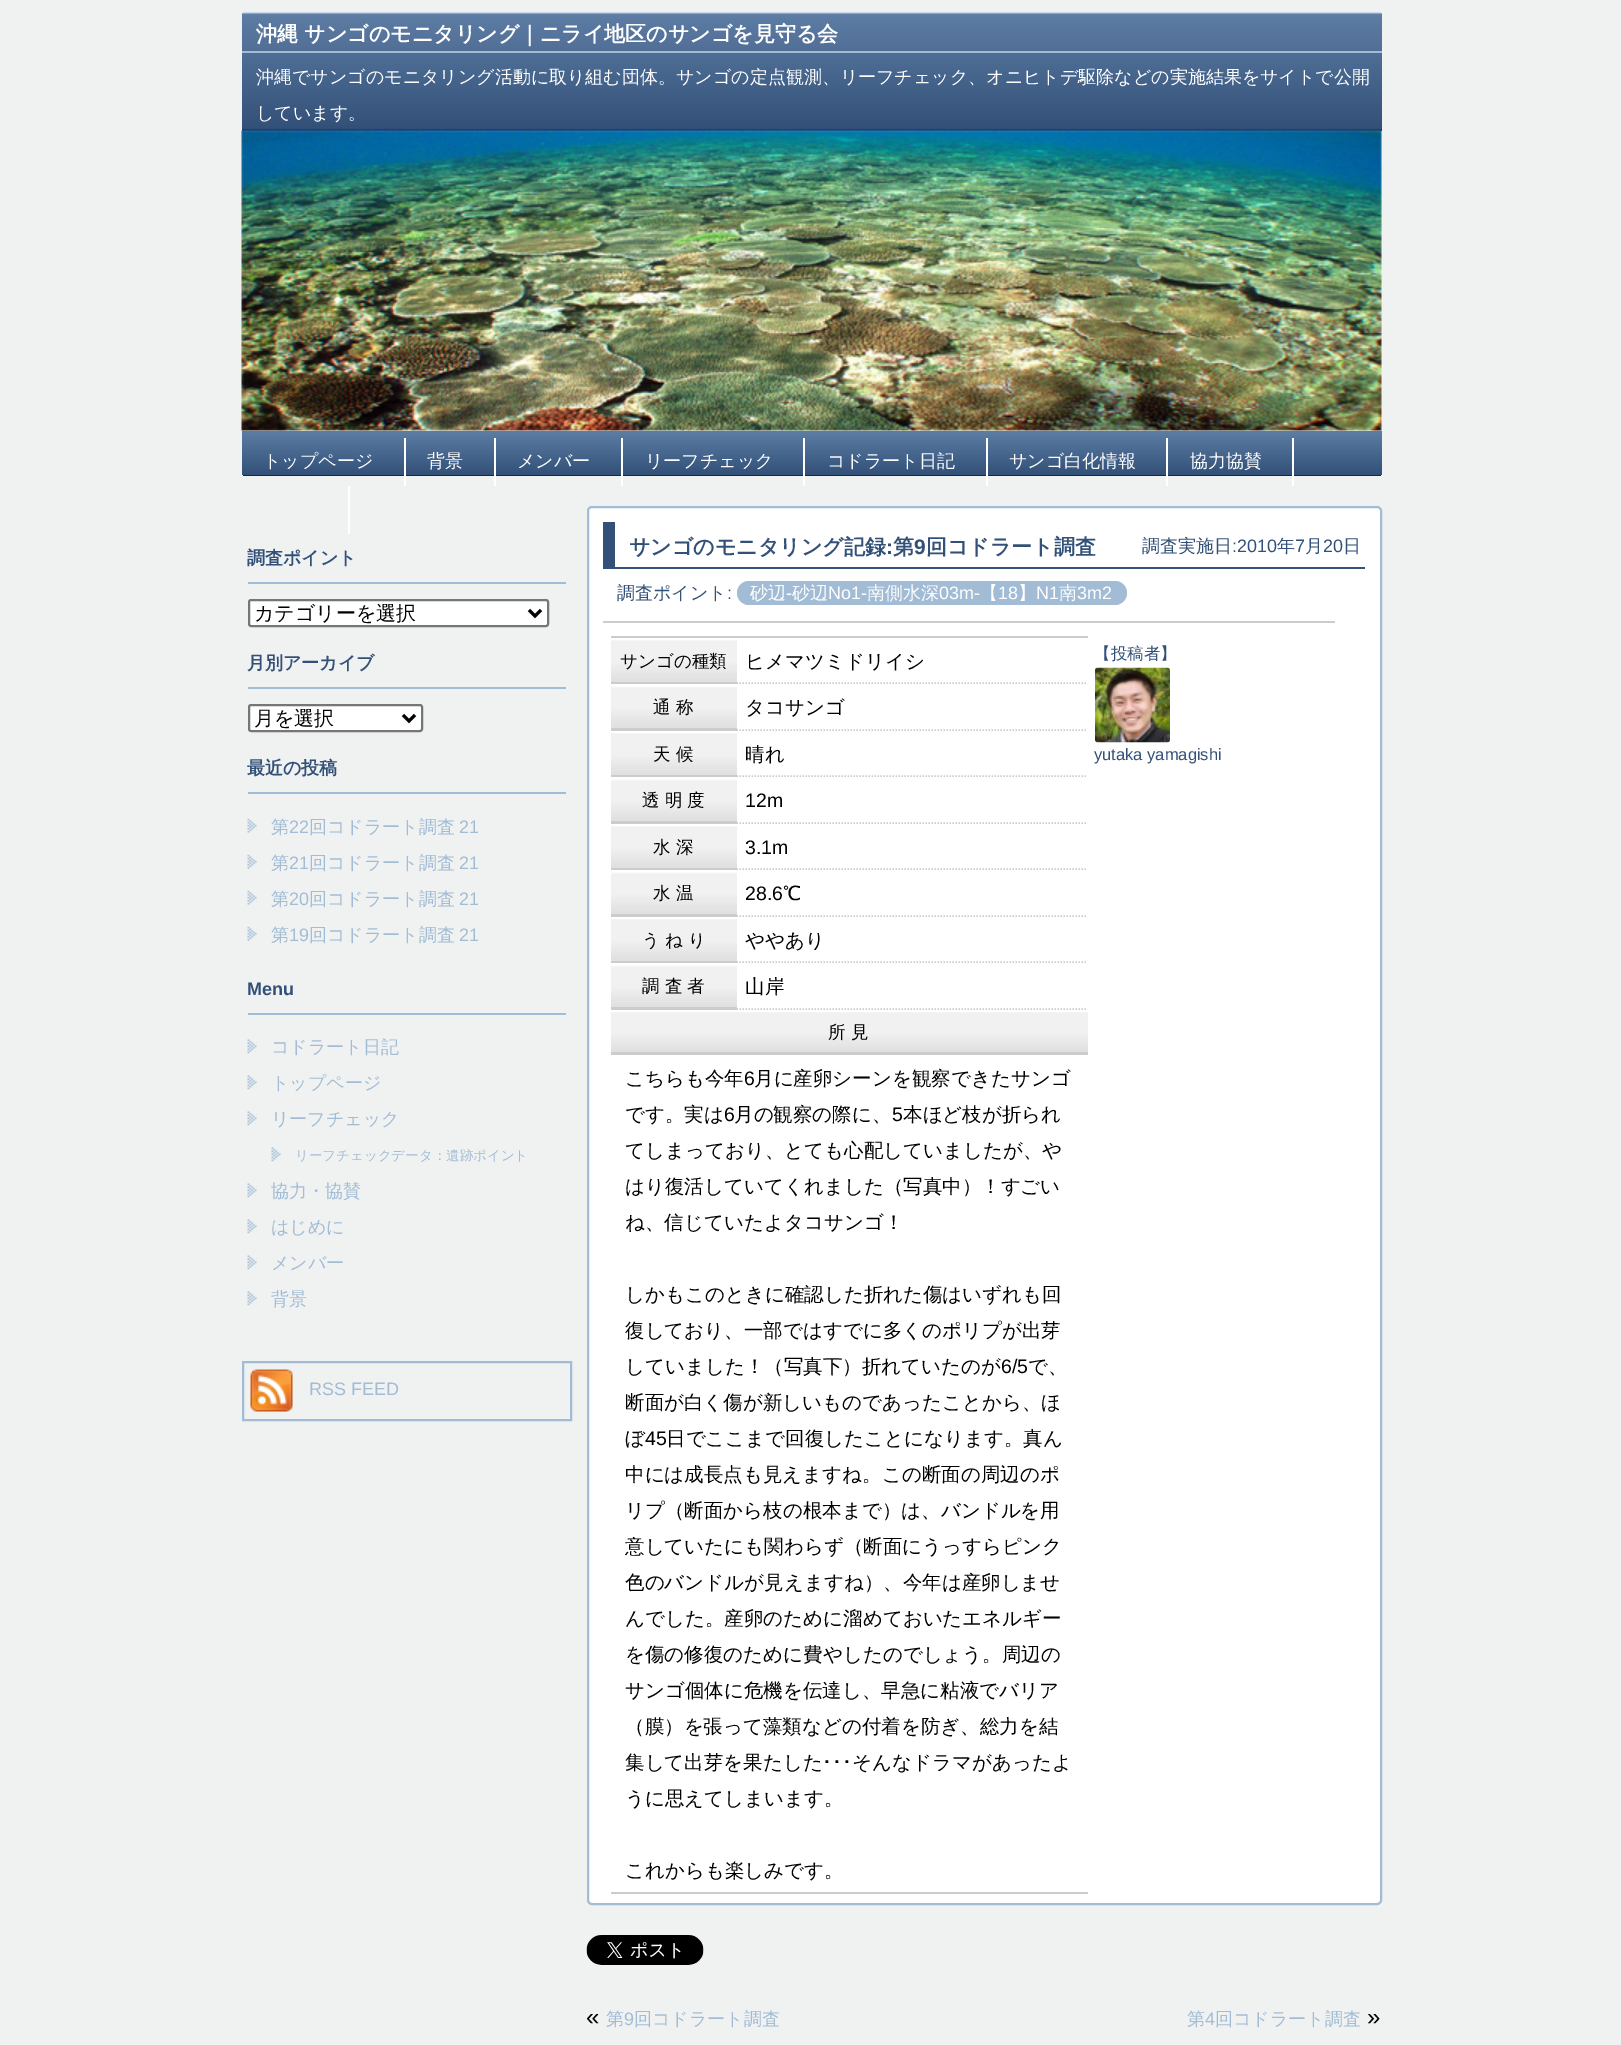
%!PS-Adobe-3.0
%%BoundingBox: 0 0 1621 2045
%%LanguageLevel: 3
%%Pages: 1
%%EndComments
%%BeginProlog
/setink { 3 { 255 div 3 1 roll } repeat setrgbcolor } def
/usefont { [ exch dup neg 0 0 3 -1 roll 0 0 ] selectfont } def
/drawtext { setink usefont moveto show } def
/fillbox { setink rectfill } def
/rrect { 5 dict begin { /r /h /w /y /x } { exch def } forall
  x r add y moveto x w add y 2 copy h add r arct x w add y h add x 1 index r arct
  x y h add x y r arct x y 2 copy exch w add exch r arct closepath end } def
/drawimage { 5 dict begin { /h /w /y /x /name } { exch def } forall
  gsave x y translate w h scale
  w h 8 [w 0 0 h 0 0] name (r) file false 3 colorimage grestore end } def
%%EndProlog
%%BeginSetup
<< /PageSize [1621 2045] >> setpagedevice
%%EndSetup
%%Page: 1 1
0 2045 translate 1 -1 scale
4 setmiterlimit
0 0 1621 2045 240 242 242 fillbox
gsave 247 12 moveto 1377 12 lineto 1380 12 1382 14 1382 17 curveto 1382 131 lineto 242 131 lineto 242 17 lineto 242 14 244 12 247 12 curveto closepath clip newpath
<< /ShadingType 2 /ColorSpace /DeviceRGB /Coords [812 12 812 131] /Extend [true true] /Function << /FunctionType 3 /Domain [0 1] /Functions [<< /FunctionType 2 /Domain [0 1] /C0 [0.91 0.945 0.976] /C1 [0.369 0.49 0.647] /N 1 >> << /FunctionType 2 /Domain [0 1] /C0 [0.369 0.49 0.647] /C1 [0.196 0.314 0.471] /N 1 >> << /FunctionType 2 /Domain [0 1] /C0 [0.196 0.314 0.471] /C1 [0.075 0.145 0.357] /N 1 >>] /Bounds [0.02 0.98] /Encode [0 1 0 1 0 1] >> >> shfill grestore
242 51 1140 2 162 188 213 fillbox
(沖縄 サンゴのモニタリング｜ニライ地区のサンゴを見守る会) 256 41 /WenQuanYiZenHei-Bold 21 255 255 255 drawtext
(沖縄でサンゴのモニタリング活動に取り組む団体。サンゴの定点観測、リーフチェック、オニヒトデ駆除などの実施結果をサイトで公開) 256 83 /WenQuanYiZenHei-Medium 18 255 255 255 drawtext
(しています。) 256 119 /WenQuanYiZenHei-Medium 18 255 255 255 drawtext
(assets/img1.rgb) 241 130 1141 301 drawimage
gsave 242 431 moveto 1382 431 lineto 1382 471 lineto 1382 474 1380 476 1377 476 curveto 247 476 lineto 244 476 242 474 242 471 curveto closepath clip newpath
<< /ShadingType 2 /ColorSpace /DeviceRGB /Coords [812 430 812 476] /Extend [true true] /Function << /FunctionType 3 /Domain [0 1] /Functions [<< /FunctionType 2 /Domain [0 1] /C0 [0.91 0.945 0.976] /C1 [0.369 0.49 0.647] /N 1 >> << /FunctionType 2 /Domain [0 1] /C0 [0.369 0.49 0.647] /C1 [0.196 0.314 0.471] /N 1 >> << /FunctionType 2 /Domain [0 1] /C0 [0.196 0.314 0.471] /C1 [0.075 0.145 0.357] /N 1 >>] /Bounds [0.02 0.98] /Encode [0 1 0 1 0 1] >> >> shfill grestore
404 438 2 48 255 255 255 fillbox
(トップページ) 263 467 /WenQuanYiZenHei-Medium 18 255 255 255 drawtext
494 438 2 48 255 255 255 fillbox
(背景) 427 467 /WenQuanYiZenHei-Medium 18 255 255 255 drawtext
621 438 2 48 255 255 255 fillbox
(メンバー) 517 467 /WenQuanYiZenHei-Medium 18 255 255 255 drawtext
803 438 2 48 255 255 255 fillbox
(リーフチェック) 645 467 /WenQuanYiZenHei-Medium 18 255 255 255 drawtext
986 438 2 48 255 255 255 fillbox
(コドラート日記) 827 467 /WenQuanYiZenHei-Medium 18 255 255 255 drawtext
1166 438 2 48 255 255 255 fillbox
(サンゴ白化情報) 1009 467 /WenQuanYiZenHei-Medium 18 255 255 255 drawtext
1292 438 2 48 255 255 255 fillbox
(協力協賛) 1190 467 /WenQuanYiZenHei-Medium 18 255 255 255 drawtext
348 486 2 48 255 255 255 fillbox
248 582 318 2 162 188 213 fillbox
(調査ポイント) 247 564 /WenQuanYiZenHei-Bold 18 50 80 120 drawtext
255 255 255 setink
249 600 299 26 2 rrect gsave fill grestore
118 118 118 setink
2 setlinewidth
stroke
0 0 0 setink
3 setlinewidth
529 610 moveto 535 616 lineto 541 610 lineto stroke
(カテゴリーを選択) 254 620 /WenQuanYiZenHei-Medium 20 0 0 0 drawtext
248 687 318 2 162 188 213 fillbox
(月別アーカイブ) 247 669 /WenQuanYiZenHei-Bold 18 50 80 120 drawtext
255 255 255 setink
249 705 173 26 2 rrect gsave fill grestore
118 118 118 setink
2 setlinewidth
stroke
0 0 0 setink
3 setlinewidth
403 715 moveto 409 721 lineto 415 715 lineto stroke
(月を選択) 254 725 /WenQuanYiZenHei-Medium 20 0 0 0 drawtext
248 792 318 2 162 188 213 fillbox
(最近の投稿) 247 774 /WenQuanYiZenHei-Bold 18 50 80 120 drawtext
(assets/img2.rgb) 247 818 10 15 drawimage
(第) 271 833 /WenQuanYiZenHei-Medium 18 162 188 213 drawtext
(22) 289 833 /LiberationSans-Regular 18 162 188 213 drawtext
(回コドラート調査) 309 833 /WenQuanYiZenHei-Medium 18 162 188 213 drawtext
(21) 459 833 /LiberationSans-Regular 18 162 188 213 drawtext
(assets/img2.rgb) 247 854 10 15 drawimage
(第) 271 869 /WenQuanYiZenHei-Medium 18 162 188 213 drawtext
(21) 289 869 /LiberationSans-Regular 18 162 188 213 drawtext
(回コドラート調査) 309 869 /WenQuanYiZenHei-Medium 18 162 188 213 drawtext
(21) 459 869 /LiberationSans-Regular 18 162 188 213 drawtext
(assets/img2.rgb) 247 890 10 15 drawimage
(第) 271 905 /WenQuanYiZenHei-Medium 18 162 188 213 drawtext
(20) 289 905 /LiberationSans-Regular 18 162 188 213 drawtext
(回コドラート調査) 309 905 /WenQuanYiZenHei-Medium 18 162 188 213 drawtext
(21) 459 905 /LiberationSans-Regular 18 162 188 213 drawtext
(assets/img2.rgb) 247 926 10 15 drawimage
(第) 271 941 /WenQuanYiZenHei-Medium 18 162 188 213 drawtext
(19) 289 941 /LiberationSans-Regular 18 162 188 213 drawtext
(回コドラート調査) 309 941 /WenQuanYiZenHei-Medium 18 162 188 213 drawtext
(21) 459 941 /LiberationSans-Regular 18 162 188 213 drawtext
248 1013 318 2 162 188 213 fillbox
(Menu) 247 995 /LiberationSans-Bold 18 50 80 120 drawtext
(assets/img3.rgb) 247 1039 10 15 drawimage
(コドラート日記) 271 1053 /WenQuanYiZenHei-Medium 18 162 188 213 drawtext
(assets/img3.rgb) 247 1075 10 15 drawimage
(トップページ) 271 1089 /WenQuanYiZenHei-Medium 18 162 188 213 drawtext
(assets/img3.rgb) 247 1111 10 15 drawimage
(リーフチェック) 271 1125 /WenQuanYiZenHei-Medium 18 162 188 213 drawtext
(assets/img3.rgb) 271 1147 10 15 drawimage
(リーフチェックデータ：遺跡ポイント) 295 1160 /WenQuanYiZenHei-Medium 13.5 162 188 213 drawtext
(assets/img3.rgb) 247 1183 10 15 drawimage
(協力・協賛) 271 1197 /WenQuanYiZenHei-Medium 18 162 188 213 drawtext
(assets/img3.rgb) 247 1219 10 15 drawimage
(はじめに) 271 1233 /WenQuanYiZenHei-Medium 18 162 188 213 drawtext
(assets/img3.rgb) 247 1255 10 15 drawimage
(メンバー) 271 1269 /WenQuanYiZenHei-Medium 18 162 188 213 drawtext
(assets/img3.rgb) 247 1291 10 15 drawimage
(背景) 271 1305 /WenQuanYiZenHei-Medium 18 162 188 213 drawtext
2 setlinewidth
243 1362 328 58 rectstroke
(assets/img4.rgb) 250 1369 43 43 drawimage
(RSS FEED) 309 1395 /LiberationSans-Regular 18 162 188 213 drawtext
255 255 255 setink
588 507 793 1397 4 rrect gsave fill grestore
162 188 213 setink
stroke
615 567 750 2 50 80 120 fillbox
603 522 12 47 50 80 120 fillbox
(サンゴのモニタリング記録) 629 554 /WenQuanYiZenHei-Bold 21 50 80 120 drawtext
(:) 886 554 /LiberationSans-Bold 21 50 80 120 drawtext
(第) 893 554 /WenQuanYiZenHei-Bold 21 50 80 120 drawtext
(9) 914 554 /LiberationSans-Bold 21 50 80 120 drawtext
(回コドラート調査) 926 554 /WenQuanYiZenHei-Bold 21 50 80 120 drawtext
(調査実施日) 1142 552 /WenQuanYiZenHei-Medium 18 50 80 120 drawtext
(:2010) 1232 552 /LiberationSans-Regular 18 50 80 120 drawtext
(年) 1277 552 /WenQuanYiZenHei-Medium 18 50 80 120 drawtext
(7) 1295 552 /LiberationSans-Regular 18 50 80 120 drawtext
(月) 1305 552 /WenQuanYiZenHei-Medium 18 50 80 120 drawtext
(20) 1323 552 /LiberationSans-Regular 18 50 80 120 drawtext
(日) 1343 552 /WenQuanYiZenHei-Medium 18 50 80 120 drawtext
(調査ポイント) 617 599 /WenQuanYiZenHei-Medium 18 50 80 120 drawtext
(:) 727 599 /LiberationSans-Regular 18 50 80 120 drawtext
162 188 213 setink
737 581 390 24 12 rrect fill
(砂辺) 750 599 /WenQuanYiZenHei-Medium 18 255 255 255 drawtext
(-) 786 599 /LiberationSans-Regular 18 255 255 255 drawtext
(砂辺) 792 599 /WenQuanYiZenHei-Medium 18 255 255 255 drawtext
(No1-) 828 599 /LiberationSans-Regular 18 255 255 255 drawtext
(南側水深) 867 599 /WenQuanYiZenHei-Medium 18 255 255 255 drawtext
(03m-) 939 599 /LiberationSans-Regular 18 255 255 255 drawtext
(【) 980 599 /WenQuanYiZenHei-Medium 18 255 255 255 drawtext
(18) 998 599 /LiberationSans-Regular 18 255 255 255 drawtext
(】) 1018 599 /WenQuanYiZenHei-Medium 18 255 255 255 drawtext
(N1) 1036 599 /LiberationSans-Regular 18 255 255 255 drawtext
(南) 1059 599 /WenQuanYiZenHei-Medium 18 255 255 255 drawtext
(3m2) 1077 599 /LiberationSans-Regular 18 255 255 255 drawtext
603 621 732 2 204 204 204 fillbox
611 636 477 2 204 204 204 fillbox
gsave 611 640 moveto 737 640 lineto 737 683 lineto 611 683 lineto closepath clip newpath
<< /ShadingType 2 /ColorSpace /DeviceRGB /Coords [674 639 674 683] /Extend [true true] /Function << /FunctionType 3 /Domain [0 1] /Functions [<< /FunctionType 2 /Domain [0 1] /C0 [1 1 1] /C1 [0.945 0.945 0.945] /N 1 >> << /FunctionType 2 /Domain [0 1] /C0 [0.945 0.945 0.945] /C1 [0.945 0.945 0.945] /N 1 >> << /FunctionType 2 /Domain [0 1] /C0 [0.945 0.945 0.945] /C1 [0.875 0.875 0.875] /N 1 >> << /FunctionType 2 /Domain [0 1] /C0 [0.875 0.875 0.875] /C1 [0.8 0.8 0.8] /N 1 >>] /Bounds [0.05 0.5 0.99] /Encode [0 1 0 1 0 1 0 1] >> >> shfill grestore
611 683 126 1 204 204 204 fillbox
(サンゴの種類) 620 667 /WenQuanYiZenHei-Medium 17.5 0 0 0 drawtext
204 204 204 setink
1.5 setlinewidth
[1.5 1.5] 0 setdash
736.5 683 moveto 1087.5 683 lineto stroke
(ヒメマツミドリイシ) 745 668 /WenQuanYiZenHei-Medium 19.5 0 0 0 drawtext
gsave 611 686 moveto 737 686 lineto 737 729 lineto 611 729 lineto closepath clip newpath
<< /ShadingType 2 /ColorSpace /DeviceRGB /Coords [674 686 674 729] /Extend [true true] /Function << /FunctionType 3 /Domain [0 1] /Functions [<< /FunctionType 2 /Domain [0 1] /C0 [1 1 1] /C1 [0.945 0.945 0.945] /N 1 >> << /FunctionType 2 /Domain [0 1] /C0 [0.945 0.945 0.945] /C1 [0.945 0.945 0.945] /N 1 >> << /FunctionType 2 /Domain [0 1] /C0 [0.945 0.945 0.945] /C1 [0.875 0.875 0.875] /N 1 >> << /FunctionType 2 /Domain [0 1] /C0 [0.875 0.875 0.875] /C1 [0.8 0.8 0.8] /N 1 >>] /Bounds [0.05 0.5 0.99] /Encode [0 1 0 1 0 1 0 1] >> >> shfill grestore
611 729 126 2 204 204 204 fillbox
(通) 653 713 /WenQuanYiZenHei-Medium 17.5 0 0 0 drawtext
(称) 676 713 /WenQuanYiZenHei-Medium 17.5 0 0 0 drawtext
204 204 204 setink
736.5 730 moveto 1087.5 730 lineto stroke
(タコサンゴ) 745 714 /WenQuanYiZenHei-Medium 19.5 0 0 0 drawtext
gsave 611 733 moveto 737 733 lineto 737 776 lineto 611 776 lineto closepath clip newpath
<< /ShadingType 2 /ColorSpace /DeviceRGB /Coords [674 732 674 776] /Extend [true true] /Function << /FunctionType 3 /Domain [0 1] /Functions [<< /FunctionType 2 /Domain [0 1] /C0 [1 1 1] /C1 [0.945 0.945 0.945] /N 1 >> << /FunctionType 2 /Domain [0 1] /C0 [0.945 0.945 0.945] /C1 [0.945 0.945 0.945] /N 1 >> << /FunctionType 2 /Domain [0 1] /C0 [0.945 0.945 0.945] /C1 [0.875 0.875 0.875] /N 1 >> << /FunctionType 2 /Domain [0 1] /C0 [0.875 0.875 0.875] /C1 [0.8 0.8 0.8] /N 1 >>] /Bounds [0.05 0.5 0.99] /Encode [0 1 0 1 0 1 0 1] >> >> shfill grestore
611 776 126 1 204 204 204 fillbox
(天) 653 760 /WenQuanYiZenHei-Medium 17.5 0 0 0 drawtext
(候) 676 760 /WenQuanYiZenHei-Medium 17.5 0 0 0 drawtext
204 204 204 setink
736.5 776 moveto 1087.5 776 lineto stroke
(晴れ) 745 761 /WenQuanYiZenHei-Medium 19.5 0 0 0 drawtext
gsave 611 779 moveto 737 779 lineto 737 822 lineto 611 822 lineto closepath clip newpath
<< /ShadingType 2 /ColorSpace /DeviceRGB /Coords [674 779 674 822] /Extend [true true] /Function << /FunctionType 3 /Domain [0 1] /Functions [<< /FunctionType 2 /Domain [0 1] /C0 [1 1 1] /C1 [0.945 0.945 0.945] /N 1 >> << /FunctionType 2 /Domain [0 1] /C0 [0.945 0.945 0.945] /C1 [0.945 0.945 0.945] /N 1 >> << /FunctionType 2 /Domain [0 1] /C0 [0.945 0.945 0.945] /C1 [0.875 0.875 0.875] /N 1 >> << /FunctionType 2 /Domain [0 1] /C0 [0.875 0.875 0.875] /C1 [0.8 0.8 0.8] /N 1 >>] /Bounds [0.05 0.5 0.99] /Encode [0 1 0 1 0 1 0 1] >> >> shfill grestore
611 822 126 2 204 204 204 fillbox
(透 明 度) 642 806 /WenQuanYiZenHei-Medium 17.5 0 0 0 drawtext
204 204 204 setink
736.5 823 moveto 1087.5 823 lineto stroke
(12m) 745 807 /LiberationSans-Regular 19.5 0 0 0 drawtext
gsave 611 826 moveto 737 826 lineto 737 869 lineto 611 869 lineto closepath clip newpath
<< /ShadingType 2 /ColorSpace /DeviceRGB /Coords [674 825 674 869] /Extend [true true] /Function << /FunctionType 3 /Domain [0 1] /Functions [<< /FunctionType 2 /Domain [0 1] /C0 [1 1 1] /C1 [0.945 0.945 0.945] /N 1 >> << /FunctionType 2 /Domain [0 1] /C0 [0.945 0.945 0.945] /C1 [0.945 0.945 0.945] /N 1 >> << /FunctionType 2 /Domain [0 1] /C0 [0.945 0.945 0.945] /C1 [0.875 0.875 0.875] /N 1 >> << /FunctionType 2 /Domain [0 1] /C0 [0.875 0.875 0.875] /C1 [0.8 0.8 0.8] /N 1 >>] /Bounds [0.05 0.5 0.99] /Encode [0 1 0 1 0 1 0 1] >> >> shfill grestore
611 869 126 1 204 204 204 fillbox
(水) 653 853 /WenQuanYiZenHei-Medium 17.5 0 0 0 drawtext
(深) 676 853 /WenQuanYiZenHei-Medium 17.5 0 0 0 drawtext
204 204 204 setink
736.5 869 moveto 1087.5 869 lineto stroke
(3.1m) 745 854 /LiberationSans-Regular 19.5 0 0 0 drawtext
gsave 611 872 moveto 737 872 lineto 737 915 lineto 611 915 lineto closepath clip newpath
<< /ShadingType 2 /ColorSpace /DeviceRGB /Coords [674 872 674 915] /Extend [true true] /Function << /FunctionType 3 /Domain [0 1] /Functions [<< /FunctionType 2 /Domain [0 1] /C0 [1 1 1] /C1 [0.945 0.945 0.945] /N 1 >> << /FunctionType 2 /Domain [0 1] /C0 [0.945 0.945 0.945] /C1 [0.945 0.945 0.945] /N 1 >> << /FunctionType 2 /Domain [0 1] /C0 [0.945 0.945 0.945] /C1 [0.875 0.875 0.875] /N 1 >> << /FunctionType 2 /Domain [0 1] /C0 [0.875 0.875 0.875] /C1 [0.8 0.8 0.8] /N 1 >>] /Bounds [0.05 0.5 0.99] /Encode [0 1 0 1 0 1 0 1] >> >> shfill grestore
611 915 126 2 204 204 204 fillbox
(水) 653 899 /WenQuanYiZenHei-Medium 17.5 0 0 0 drawtext
(温) 676 899 /WenQuanYiZenHei-Medium 17.5 0 0 0 drawtext
204 204 204 setink
736.5 916 moveto 1087.5 916 lineto stroke
(28.6) 745 900 /LiberationSans-Regular 19.5 0 0 0 drawtext
(℃) 783 900 /WenQuanYiZenHei-Medium 19.5 0 0 0 drawtext
gsave 611 919 moveto 737 919 lineto 737 962 lineto 611 962 lineto closepath clip newpath
<< /ShadingType 2 /ColorSpace /DeviceRGB /Coords [674 918 674 962] /Extend [true true] /Function << /FunctionType 3 /Domain [0 1] /Functions [<< /FunctionType 2 /Domain [0 1] /C0 [1 1 1] /C1 [0.945 0.945 0.945] /N 1 >> << /FunctionType 2 /Domain [0 1] /C0 [0.945 0.945 0.945] /C1 [0.945 0.945 0.945] /N 1 >> << /FunctionType 2 /Domain [0 1] /C0 [0.945 0.945 0.945] /C1 [0.875 0.875 0.875] /N 1 >> << /FunctionType 2 /Domain [0 1] /C0 [0.875 0.875 0.875] /C1 [0.8 0.8 0.8] /N 1 >>] /Bounds [0.05 0.5 0.99] /Encode [0 1 0 1 0 1 0 1] >> >> shfill grestore
611 962 126 1 204 204 204 fillbox
(う ね り) 642 946 /WenQuanYiZenHei-Medium 17.5 0 0 0 drawtext
204 204 204 setink
736.5 962 moveto 1087.5 962 lineto stroke
(ややあり) 745 947 /WenQuanYiZenHei-Medium 19.5 0 0 0 drawtext
gsave 611 965 moveto 737 965 lineto 737 1008 lineto 611 1008 lineto closepath clip newpath
<< /ShadingType 2 /ColorSpace /DeviceRGB /Coords [674 965 674 1008] /Extend [true true] /Function << /FunctionType 3 /Domain [0 1] /Functions [<< /FunctionType 2 /Domain [0 1] /C0 [1 1 1] /C1 [0.945 0.945 0.945] /N 1 >> << /FunctionType 2 /Domain [0 1] /C0 [0.945 0.945 0.945] /C1 [0.945 0.945 0.945] /N 1 >> << /FunctionType 2 /Domain [0 1] /C0 [0.945 0.945 0.945] /C1 [0.875 0.875 0.875] /N 1 >> << /FunctionType 2 /Domain [0 1] /C0 [0.875 0.875 0.875] /C1 [0.8 0.8 0.8] /N 1 >>] /Bounds [0.05 0.5 0.99] /Encode [0 1 0 1 0 1 0 1] >> >> shfill grestore
611 1008 126 2 204 204 204 fillbox
(調 査 者) 642 992 /WenQuanYiZenHei-Medium 17.5 0 0 0 drawtext
204 204 204 setink
736.5 1009 moveto 1087.5 1009 lineto stroke
(山岸) 745 993 /WenQuanYiZenHei-Medium 19.5 0 0 0 drawtext
gsave 611 1012 moveto 1088 1012 lineto 1088 1053 lineto 611 1053 lineto closepath clip newpath
<< /ShadingType 2 /ColorSpace /DeviceRGB /Coords [849 1011 849 1053] /Extend [true true] /Function << /FunctionType 3 /Domain [0 1] /Functions [<< /FunctionType 2 /Domain [0 1] /C0 [1 1 1] /C1 [0.945 0.945 0.945] /N 1 >> << /FunctionType 2 /Domain [0 1] /C0 [0.945 0.945 0.945] /C1 [0.945 0.945 0.945] /N 1 >> << /FunctionType 2 /Domain [0 1] /C0 [0.945 0.945 0.945] /C1 [0.875 0.875 0.875] /N 1 >> << /FunctionType 2 /Domain [0 1] /C0 [0.875 0.875 0.875] /C1 [0.8 0.8 0.8] /N 1 >>] /Bounds [0.05 0.5 0.99] /Encode [0 1 0 1 0 1 0 1] >> >> shfill grestore
611 1053 477 2 204 204 204 fillbox
(所) 828 1038 /WenQuanYiZenHei-Medium 17.5 0 0 0 drawtext
(見) 851 1038 /WenQuanYiZenHei-Medium 17.5 0 0 0 drawtext
611 1892 477 2 204 204 204 fillbox
(こちらも今年) 625 1085 /WenQuanYiZenHei-Medium 19.5 0 0 0 drawtext
(6) 744 1085 /LiberationSans-Regular 19.5 0 0 0 drawtext
(月に産卵シーンを観察できたサンゴ) 754 1085 /WenQuanYiZenHei-Medium 19.5 0 0 0 drawtext
(です。実は) 625 1121 /WenQuanYiZenHei-Medium 19.5 0 0 0 drawtext
(6) 724 1121 /LiberationSans-Regular 19.5 0 0 0 drawtext
(月の観察の際に、) 734 1121 /WenQuanYiZenHei-Medium 19.5 0 0 0 drawtext
(5) 892 1121 /LiberationSans-Regular 19.5 0 0 0 drawtext
(本ほど枝が折られ) 903 1121 /WenQuanYiZenHei-Medium 19.5 0 0 0 drawtext
(てしまっており、とても心配していましたが、や) 625 1157 /WenQuanYiZenHei-Medium 19.5 0 0 0 drawtext
(はり復活していてくれました（写真中）！すごい) 625 1193 /WenQuanYiZenHei-Medium 19.5 0 0 0 drawtext
(ね、信じていたよタコサンゴ！) 625 1229 /WenQuanYiZenHei-Medium 19.5 0 0 0 drawtext
(しかもこのときに確認した折れた傷はいずれも回) 625 1301 /WenQuanYiZenHei-Medium 19.5 0 0 0 drawtext
(復しており、一部ではすでに多くのポリプが出芽) 625 1337 /WenQuanYiZenHei-Medium 19.5 0 0 0 drawtext
(していました！（写真下）折れていたのが) 625 1373 /WenQuanYiZenHei-Medium 19.5 0 0 0 drawtext
(6/5) 1001 1373 /LiberationSans-Regular 19.5 0 0 0 drawtext
(で、) 1028 1373 /WenQuanYiZenHei-Medium 19.5 0 0 0 drawtext
(断面が白く傷が新しいものであったことから、ほ) 625 1409 /WenQuanYiZenHei-Medium 19.5 0 0 0 drawtext
(ぼ) 625 1445 /WenQuanYiZenHei-Medium 19.5 0 0 0 drawtext
(45) 645 1445 /LiberationSans-Regular 19.5 0 0 0 drawtext
(日でここまで回復したことになります。真ん) 666 1445 /WenQuanYiZenHei-Medium 19.5 0 0 0 drawtext
(中には成長点も見えますね。この断面の周辺のポ) 625 1481 /WenQuanYiZenHei-Medium 19.5 0 0 0 drawtext
(リプ（断面から枝の根本まで）は、バンドルを用) 625 1517 /WenQuanYiZenHei-Medium 19.5 0 0 0 drawtext
(意していたにも関わらず（断面にうっすらピンク) 625 1553 /WenQuanYiZenHei-Medium 19.5 0 0 0 drawtext
(色のバンドルが見えますね）、今年は産卵しませ) 625 1589 /WenQuanYiZenHei-Medium 19.5 0 0 0 drawtext
(んでした。産卵のために溜めておいたエネルギー) 625 1625 /WenQuanYiZenHei-Medium 19.5 0 0 0 drawtext
(を傷の修復のために費やしたのでしょう。周辺の) 625 1661 /WenQuanYiZenHei-Medium 19.5 0 0 0 drawtext
(サンゴ個体に危機を伝達し、早急に粘液でバリア) 625 1697 /WenQuanYiZenHei-Medium 19.5 0 0 0 drawtext
(（膜）を張って藻類などの付着を防ぎ、総力を結) 625 1733 /WenQuanYiZenHei-Medium 19.5 0 0 0 drawtext
(集して出芽を果たした) 625 1769 /WenQuanYiZenHei-Medium 19.5 0 0 0 drawtext
(･･･) 822 1769 /IPAPGothic-Regular 19.5 0 0 0 drawtext
(そんなドラマがあったよ) 852 1769 /WenQuanYiZenHei-Medium 19.5 0 0 0 drawtext
(うに思えてしまいます。) 625 1805 /WenQuanYiZenHei-Medium 19.5 0 0 0 drawtext
(これからも楽しみです。) 625 1877 /WenQuanYiZenHei-Medium 19.5 0 0 0 drawtext
(【投稿者】) 1094 659 /WenQuanYiZenHei-Medium 16.5 50 80 120 drawtext
(assets/img5.rgb) 1095 667 75 76 drawimage
(yutaka yamagishi) 1094 760 /LiberationSans-Regular 16.5 50 80 120 drawtext
(assets/img6.rgb) 586 1935 118 30 drawimage
(«) 586 2025 /LiberationSans-Regular 24 0 0 0 drawtext
(第) 606 2025 /WenQuanYiZenHei-Medium 18 162 188 213 drawtext
(9) 624 2025 /LiberationSans-Regular 18 162 188 213 drawtext
(回コドラート調査) 634 2025 /WenQuanYiZenHei-Medium 18 162 188 213 drawtext
(第) 1187 2025 /WenQuanYiZenHei-Medium 18 162 188 213 drawtext
(4) 1205 2025 /LiberationSans-Regular 18 162 188 213 drawtext
(回コドラート調査) 1215 2025 /WenQuanYiZenHei-Medium 18 162 188 213 drawtext
(») 1367 2025 /LiberationSans-Regular 24 0 0 0 drawtext
showpage
%%EOF
